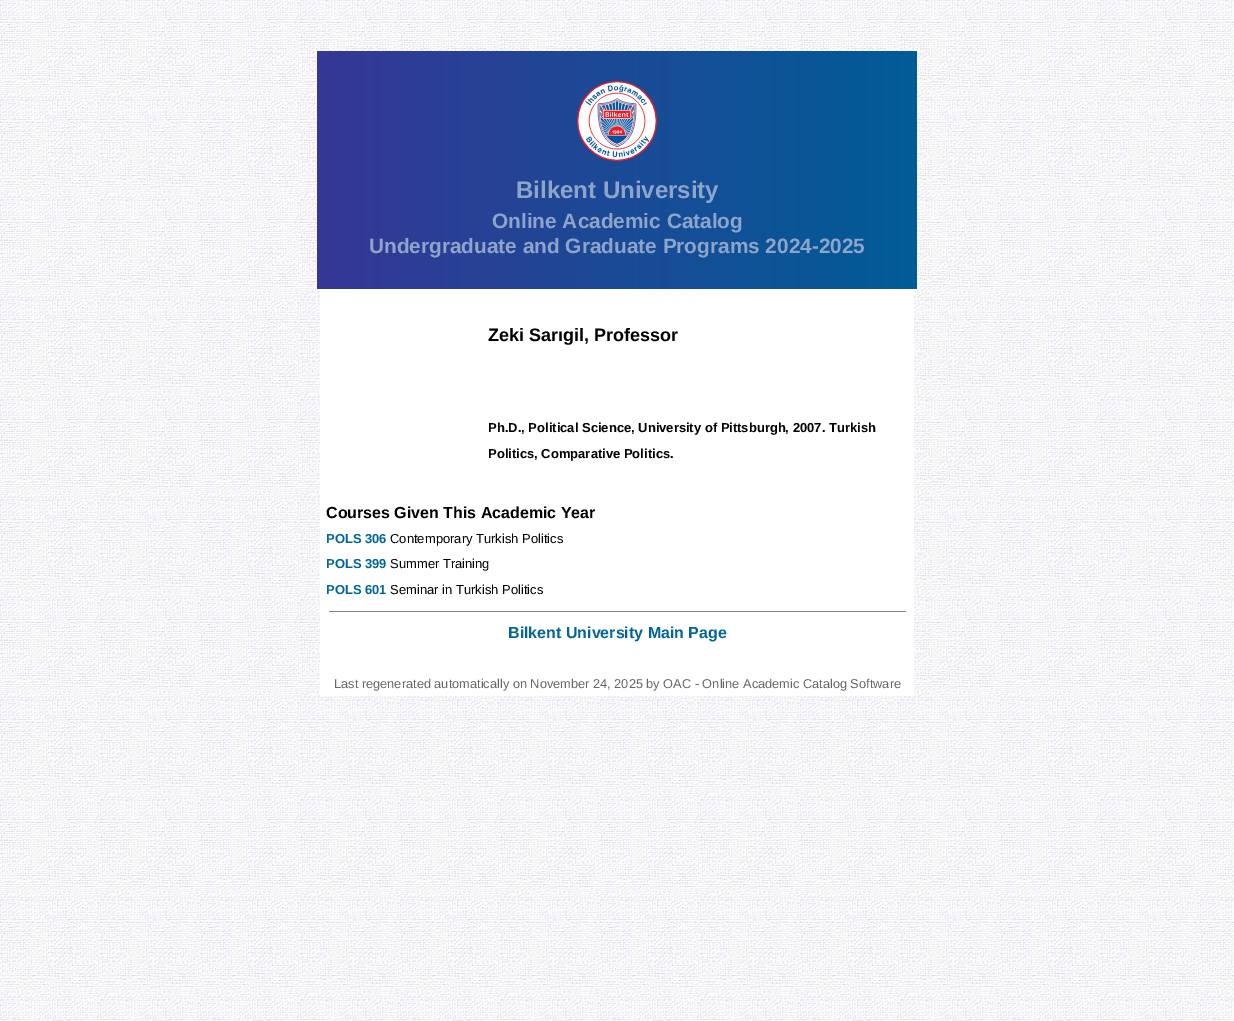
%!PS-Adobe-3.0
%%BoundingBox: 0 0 1234 1021
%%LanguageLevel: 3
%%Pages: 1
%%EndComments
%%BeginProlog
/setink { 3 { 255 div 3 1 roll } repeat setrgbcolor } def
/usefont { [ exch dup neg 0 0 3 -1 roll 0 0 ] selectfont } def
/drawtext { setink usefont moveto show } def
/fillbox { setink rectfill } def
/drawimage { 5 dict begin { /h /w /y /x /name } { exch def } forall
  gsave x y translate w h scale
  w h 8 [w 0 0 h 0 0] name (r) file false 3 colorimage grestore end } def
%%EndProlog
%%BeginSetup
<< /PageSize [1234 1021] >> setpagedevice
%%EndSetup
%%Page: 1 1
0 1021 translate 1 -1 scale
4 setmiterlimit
0 0 1234 1021 255 255 255 fillbox
(assets/img1.rgb) 0 0 1234 1021 drawimage
gsave 317 51 moveto 917 51 lineto 917 289 lineto 317 289 lineto closepath clip newpath
<< /ShadingType 2 /ColorSpace /DeviceRGB /Coords [317 170 917 170] /Extend [true true] /Function << /FunctionType 2 /Domain [0 1] /C0 [0.212 0.216 0.584] /C1 [0 0.361 0.592] /N 1 >> >> shfill grestore
(assets/img2.rgb) 577 81 80 80 drawimage
(Bilkent University) 516 198 /LiberationSans-Bold 24 141 164 203 drawtext
(Online Academic Catalog) 492 228 /LiberationSans-Bold 20.8 141 164 203 drawtext
(Undergraduate and Graduate Programs 2024-2025) 369 253 /LiberationSans-Bold 20.8 141 164 203 drawtext
320 289 594 407 255 255 255 fillbox
(Zeki Sarıgil, Professor) 488 341 /LiberationSans-Bold 18 0 0 0 drawtext
(Ph.D., Political Science, University of Pittsburgh, 2007. Turkish) 488 432 /LiberationSans-Bold 13 0 0 0 drawtext
(Politics, Comparative Politics.) 488 458 /LiberationSans-Bold 13 0 0 0 drawtext
(Courses Given This Academic Year) 326 518 /LiberationSans-Bold 16 0 0 0 drawtext
(POLS 306) 326 543 /LiberationSans-Bold 13 0 102 153 drawtext
(Contemporary Turkish Politics) 390 543 /LiberationSans-Regular 13 0 0 0 drawtext
(POLS 399) 326 568 /LiberationSans-Bold 13 0 102 153 drawtext
(Summer Training) 390 568 /LiberationSans-Regular 13 0 0 0 drawtext
(POLS 601) 326 594 /LiberationSans-Bold 13 0 102 153 drawtext
(Seminar in Turkish Politics) 390 594 /LiberationSans-Regular 13 0 0 0 drawtext
329 611 577 1 128 128 128 fillbox
(Bilkent University Main Page) 508 638 /LiberationSans-Bold 16 0 102 153 drawtext
(Last regenerated automatically on November 24, 2025 by OAC - Online Academic Catalog Software) 334 688 /LiberationSans-Regular 12.8 102 102 102 drawtext
showpage
%%EOF
